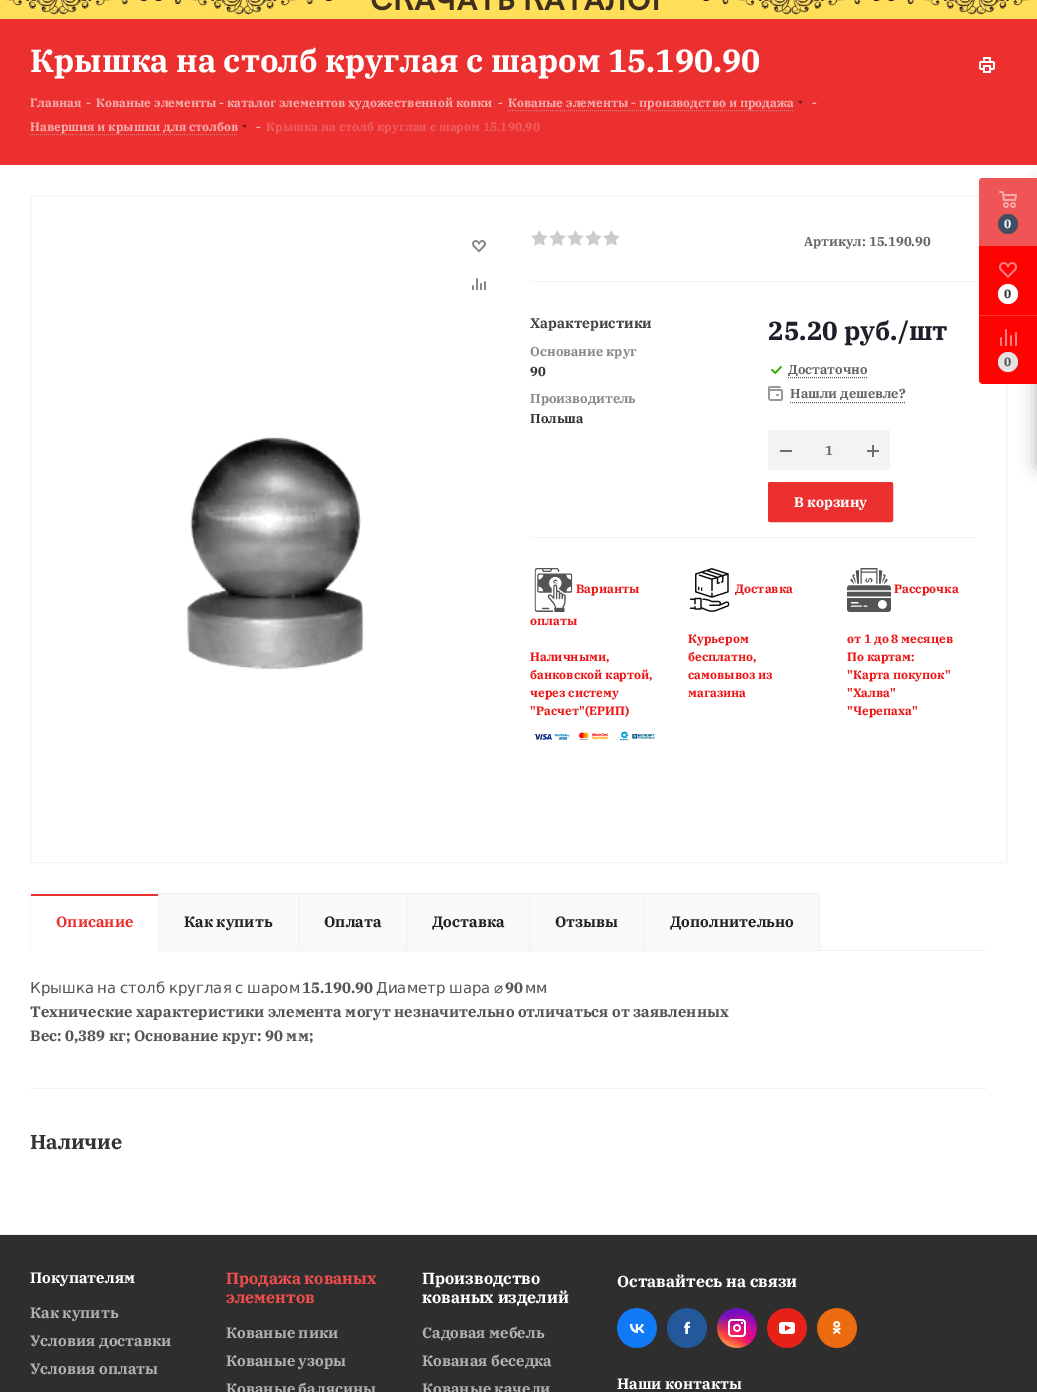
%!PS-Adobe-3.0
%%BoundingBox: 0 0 1037 1392
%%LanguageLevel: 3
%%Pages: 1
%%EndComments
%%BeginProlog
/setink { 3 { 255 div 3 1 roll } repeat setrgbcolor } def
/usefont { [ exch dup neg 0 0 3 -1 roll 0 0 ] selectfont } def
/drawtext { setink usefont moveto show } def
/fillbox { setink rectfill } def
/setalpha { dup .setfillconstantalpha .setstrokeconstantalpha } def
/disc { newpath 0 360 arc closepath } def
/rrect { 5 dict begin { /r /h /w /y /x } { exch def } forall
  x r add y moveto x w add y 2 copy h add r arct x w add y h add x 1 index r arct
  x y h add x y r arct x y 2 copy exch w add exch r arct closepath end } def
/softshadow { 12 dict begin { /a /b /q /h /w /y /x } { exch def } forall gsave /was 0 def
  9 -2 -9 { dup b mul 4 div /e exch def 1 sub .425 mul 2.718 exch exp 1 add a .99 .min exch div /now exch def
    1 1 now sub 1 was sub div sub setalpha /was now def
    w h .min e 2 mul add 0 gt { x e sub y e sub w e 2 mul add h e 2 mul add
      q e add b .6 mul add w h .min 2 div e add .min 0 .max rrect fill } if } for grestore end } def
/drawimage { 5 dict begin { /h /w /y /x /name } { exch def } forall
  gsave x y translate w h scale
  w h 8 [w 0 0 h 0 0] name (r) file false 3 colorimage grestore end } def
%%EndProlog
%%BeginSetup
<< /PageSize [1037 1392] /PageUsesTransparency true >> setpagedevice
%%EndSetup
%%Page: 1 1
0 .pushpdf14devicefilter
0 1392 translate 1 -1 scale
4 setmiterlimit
0 0 1037 1392 255 255 255 fillbox
(assets/img1.rgb) 0 0 1037 19 drawimage
0 19 1037 146 236 48 48 fillbox
(Крышка на столб круглая с шаром 15.190.90) 30 72 /IBMPlexSerif-Bold 32 255 255 255 drawtext
(assets/img2.rgb) 979 57 16 16 drawimage
(Главная) 30 107 /IBMPlexSerif-Bold 12 247 172 172 drawtext
(-) 86 107 /IBMPlexSerif-Bold 12 247 172 172 drawtext
(Кованые элементы - каталог элементов художественной ковки) 96 107 /IBMPlexSerif-Bold 12 247 172 172 drawtext
(-) 498 107 /IBMPlexSerif-Bold 12 247 172 172 drawtext
(Кованые элементы - производство и продажа) 508 107 /IBMPlexSerif-Bold 12 247 172 172 drawtext
202 127 127 setink
[1 1] 0 setdash
508 110.5 moveto 794 110.5 lineto stroke
(assets/img3.rgb) 798 101 5 3 drawimage
(-) 812 107 /IBMPlexSerif-Bold 12 247 172 172 drawtext
(Навершия и крышки для столбов) 30 131 /IBMPlexSerif-Bold 12 247 172 172 drawtext
202 127 127 setink
30 134.5 moveto 238 134.5 lineto stroke
(assets/img3.rgb) 242 125 5 3 drawimage
(-) 256 131 /IBMPlexSerif-Bold 12 247 172 172 drawtext
(Крышка на столб круглая с шаром 15.190.90) 266 131 /IBMPlexSerif-Bold 12 240 93 93 drawtext
242 242 242 setink
[] 0 setdash
30.5 195.5 976 667 rectstroke
(assets/img4.rgb) 472 240 14 13 drawimage
(assets/img5.rgb) 472 278 14 12 drawimage
(assets/img6.rgb) 187 437 177 233 drawimage
530 281 446 1 242 242 242 fillbox
(assets/img7.rgb) 531 230 17 16 drawimage
(assets/img7.rgb) 549 230 17 16 drawimage
(assets/img7.rgb) 567 230 17 16 drawimage
(assets/img7.rgb) 585 230 17 16 drawimage
(assets/img7.rgb) 603 230 17 16 drawimage
(Артикул: 15.190.90) 804 246 /IBMPlexSerif-Bold 13 102 102 102 drawtext
(Характеристики) 530 328 /IBMPlexSerif-Bold 14 68 68 68 drawtext
(Основание круг) 530 356 /IBMPlexSerif-Bold 13 136 136 136 drawtext
(90) 530 376 /IBMPlexSerif-Bold 13 51 51 51 drawtext
(Производитель) 530 403 /IBMPlexSerif-Bold 13 136 136 136 drawtext
(Польша) 530 423 /IBMPlexSerif-Bold 13 51 51 51 drawtext
(25.20 руб./шт) 768 340 /IBMPlexSerif-Bold 26 29 32 41 drawtext
(assets/img8.rgb) 771 366 11 8 drawimage
102 102 102 setink
[1 1] 0 setdash
788 377.5 moveto 867 377.5 lineto stroke
(Достаточно) 788 374 /IBMPlexSerif-Bold 13 102 102 102 drawtext
(assets/img9.rgb) 768 386 15 15 drawimage
(Нашли дешевле?) 790 398 /IBMPlexSerif-Bold 13 102 102 102 drawtext
790 402.5 moveto 905 402.5 lineto stroke
243 243 245 setink
768 430 122 40 2 rrect fill
780 450 12 2 109 109 109 fillbox
(1) 825 455 /IBMPlexSerif-Bold 13 102 102 102 drawtext
(assets/img10.rgb) 867 445 12 12 drawimage
236 48 48 setink
768.5 482.5 124 39 1.5 rrect gsave fill grestore
[] 0 setdash
stroke
(В корзину) 794 507 /IBMPlexSerif-Bold 14 255 255 255 drawtext
530 537 446 1 242 242 242 fillbox
(assets/img11.rgb) 534 568 39 44 drawimage
(Варианты) 576 593 /IBMPlexSerif-Bold 12 235 23 23 drawtext
(оплаты) 530 625 /IBMPlexSerif-Bold 12 235 23 23 drawtext
(Наличными,) 530 661 /IBMPlexSerif-Bold 12 235 23 23 drawtext
(банковской картой,) 530 679 /IBMPlexSerif-Bold 12 235 23 23 drawtext
(через систему) 530 697 /IBMPlexSerif-Bold 12 235 23 23 drawtext
("Расчет"\(ЕРИП\)) 530 715 /IBMPlexSerif-Bold 12 235 23 23 drawtext
(assets/img12.rgb) 534 731 121 10 drawimage
(assets/img13.rgb) 690 568 40 44 drawimage
(Доставка) 735 593 /IBMPlexSerif-Bold 12 235 23 23 drawtext
(Курьером) 688 643 /IBMPlexSerif-Bold 12 235 23 23 drawtext
(бесплатно,) 688 661 /IBMPlexSerif-Bold 12 235 23 23 drawtext
(самовывоз из) 688 679 /IBMPlexSerif-Bold 12 235 23 23 drawtext
(магазина) 688 697 /IBMPlexSerif-Bold 12 235 23 23 drawtext
(assets/img14.rgb) 847 568 44 44 drawimage
(Рассрочка) 894 593 /IBMPlexSerif-Bold 12 235 23 23 drawtext
(от 1 до 8 месяцев) 847 643 /IBMPlexSerif-Bold 12 235 23 23 drawtext
(По картам:) 847 661 /IBMPlexSerif-Bold 12 235 23 23 drawtext
("Карта покупок") 847 679 /IBMPlexSerif-Bold 12 235 23 23 drawtext
("Халва") 847 697 /IBMPlexSerif-Bold 12 235 23 23 drawtext
("Черепаха") 847 715 /IBMPlexSerif-Bold 12 235 23 23 drawtext
820 950 167 1 242 242 242 fillbox
249 249 250 setink
158.5 893.5 moveto 298.5 893.5 lineto 298.5 950.5 lineto 158.5 950.5 lineto closepath gsave fill grestore
242 242 242 setink
stroke
30 893 129 1 245 245 245 fillbox
158 893 1 58 245 245 245 fillbox
158 950 1 1 255 255 255 fillbox
30 893 1 58 245 245 245 fillbox
31 894 127 2 236 48 48 fillbox
(Описание) 56 927 /IBMPlexSerif-Bold 15 236 48 48 drawtext
(Как купить) 184 927 /IBMPlexSerif-Bold 15 34 34 34 drawtext
249 249 250 setink
298.5 893.5 moveto 406.5 893.5 lineto 406.5 950.5 lineto 298.5 950.5 lineto closepath gsave fill grestore
242 242 242 setink
stroke
(Оплата) 324 927 /IBMPlexSerif-Bold 15 34 34 34 drawtext
249 249 250 setink
406.5 893.5 moveto 529.5 893.5 lineto 529.5 950.5 lineto 406.5 950.5 lineto closepath gsave fill grestore
242 242 242 setink
stroke
(Доставка) 432 927 /IBMPlexSerif-Bold 15 34 34 34 drawtext
249 249 250 setink
529.5 893.5 moveto 644.5 893.5 lineto 644.5 950.5 lineto 529.5 950.5 lineto closepath gsave fill grestore
242 242 242 setink
stroke
(Отзывы) 555 927 /IBMPlexSerif-Bold 15 34 34 34 drawtext
249 249 250 setink
644.5 893.5 moveto 819.5 893.5 lineto 819.5 950.5 lineto 644.5 950.5 lineto closepath gsave fill grestore
242 242 242 setink
stroke
(Дополнительно) 670 927 /IBMPlexSerif-Bold 15 34 34 34 drawtext
/DejaVuSans-Regular 15 usefont
85 85 85 setink
30 993 moveto -1.25 0 32 (Крышка на столб круглая с шаром) widthshow
(15.190.90) 302 993 /IBMPlexSerif-Bold 15 85 85 85 drawtext
/DejaVuSans-Regular 15 usefont
376 993 moveto -1.25 0 32 (Диаметр шара ⌀) widthshow
(90) 505 993 /IBMPlexSerif-Bold 15 85 85 85 drawtext
(мм) 525 993 /DejaVuSans-Regular 15 85 85 85 drawtext
(Технические характеристики элемента могут незначительно отличаться от заявленных) 30 1017 /IBMPlexSerif-Bold 15 85 85 85 drawtext
(Вес: 0,389 кг; Основание круг: 90 мм;) 30 1041 /IBMPlexSerif-Bold 15 85 85 85 drawtext
30 1088 957 1 242 242 242 fillbox
(Наличие) 30 1149 /IBMPlexSerif-Bold 20 51 51 51 drawtext
44 44 44 setink
1037 184 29 283 2 9 0.4 softshadow
255 3 3 setink
983 178 moveto 1037 178 lineto 1037 384 lineto 983 384 lineto 981 384 979 382 979 380 curveto 979 182 lineto 979 180 981 178 983 178 curveto closepath fill
239 85 85 setink
983 178 moveto 1037 178 lineto 1037 246 lineto 979 246 lineto 979 182 lineto 979 180 981 178 983 178 curveto closepath fill
(assets/img15.rgb) 999 191 18 17 drawimage
66 79 96 setink
1008 224 10 disc fill
(0) 1004 228 /IBMPlexSerif-Bold 12 255 255 255 drawtext
(assets/img16.rgb) 999 262 18 16 drawimage
1008 294 10 disc fill
(0) 1004 298 /IBMPlexSerif-Bold 12 51 51 51 drawtext
979 315 58 1 250 50 51 fillbox
(assets/img17.rgb) 1000 329 17 17 drawimage
227 227 227 setink
1008 362 10 disc fill
(0) 1004 366 /IBMPlexSerif-Bold 12 85 85 85 drawtext
0 1234 1037 1 238 238 238 fillbox
0 1235 1037 157 46 46 47 fillbox
(Покупателям) 30 1283 /IBMPlexSerif-Bold 15 255 255 255 drawtext
(Как купить) 30 1318 /IBMPlexSerif-Bold 15 176 176 176 drawtext
(Условия доставки) 30 1346 /IBMPlexSerif-Bold 15 176 176 176 drawtext
(Условия оплаты) 30 1374 /IBMPlexSerif-Bold 15 176 176 176 drawtext
(Продажа кованых) 226 1284 /IBMPlexSerif-Bold 16 239 76 76 drawtext
(элементов) 226 1303 /IBMPlexSerif-Bold 16 239 76 76 drawtext
(Кованые пики) 226 1338 /IBMPlexSerif-Bold 15 176 176 176 drawtext
(Кованые узоры) 226 1366 /IBMPlexSerif-Bold 15 176 176 176 drawtext
(Кованые балясины) 226 1394 /IBMPlexSerif-Bold 15 176 176 176 drawtext
(Производство) 422 1284 /IBMPlexSerif-Bold 16 255 255 255 drawtext
(кованых изделий) 422 1303 /IBMPlexSerif-Bold 16 255 255 255 drawtext
(Садовая мебель) 422 1338 /IBMPlexSerif-Bold 15 176 176 176 drawtext
(Кованая беседка) 422 1366 /IBMPlexSerif-Bold 15 176 176 176 drawtext
(Кованые качели) 422 1394 /IBMPlexSerif-Bold 15 176 176 176 drawtext
(Оставайтесь на связи) 617 1287 /IBMPlexSerif-Bold 16 255 255 255 drawtext
(assets/img18.rgb) 617 1308 40 40 drawimage
(assets/img19.rgb) 667 1308 40 40 drawimage
(assets/img20.rgb) 717 1308 40 40 drawimage
(assets/img21.rgb) 767 1308 40 40 drawimage
(assets/img22.rgb) 817 1308 40 40 drawimage
(Наши контакты) 617 1389 /IBMPlexSerif-Bold 15 255 255 255 drawtext
.poppdf14devicefilter showpage
%%EOF
